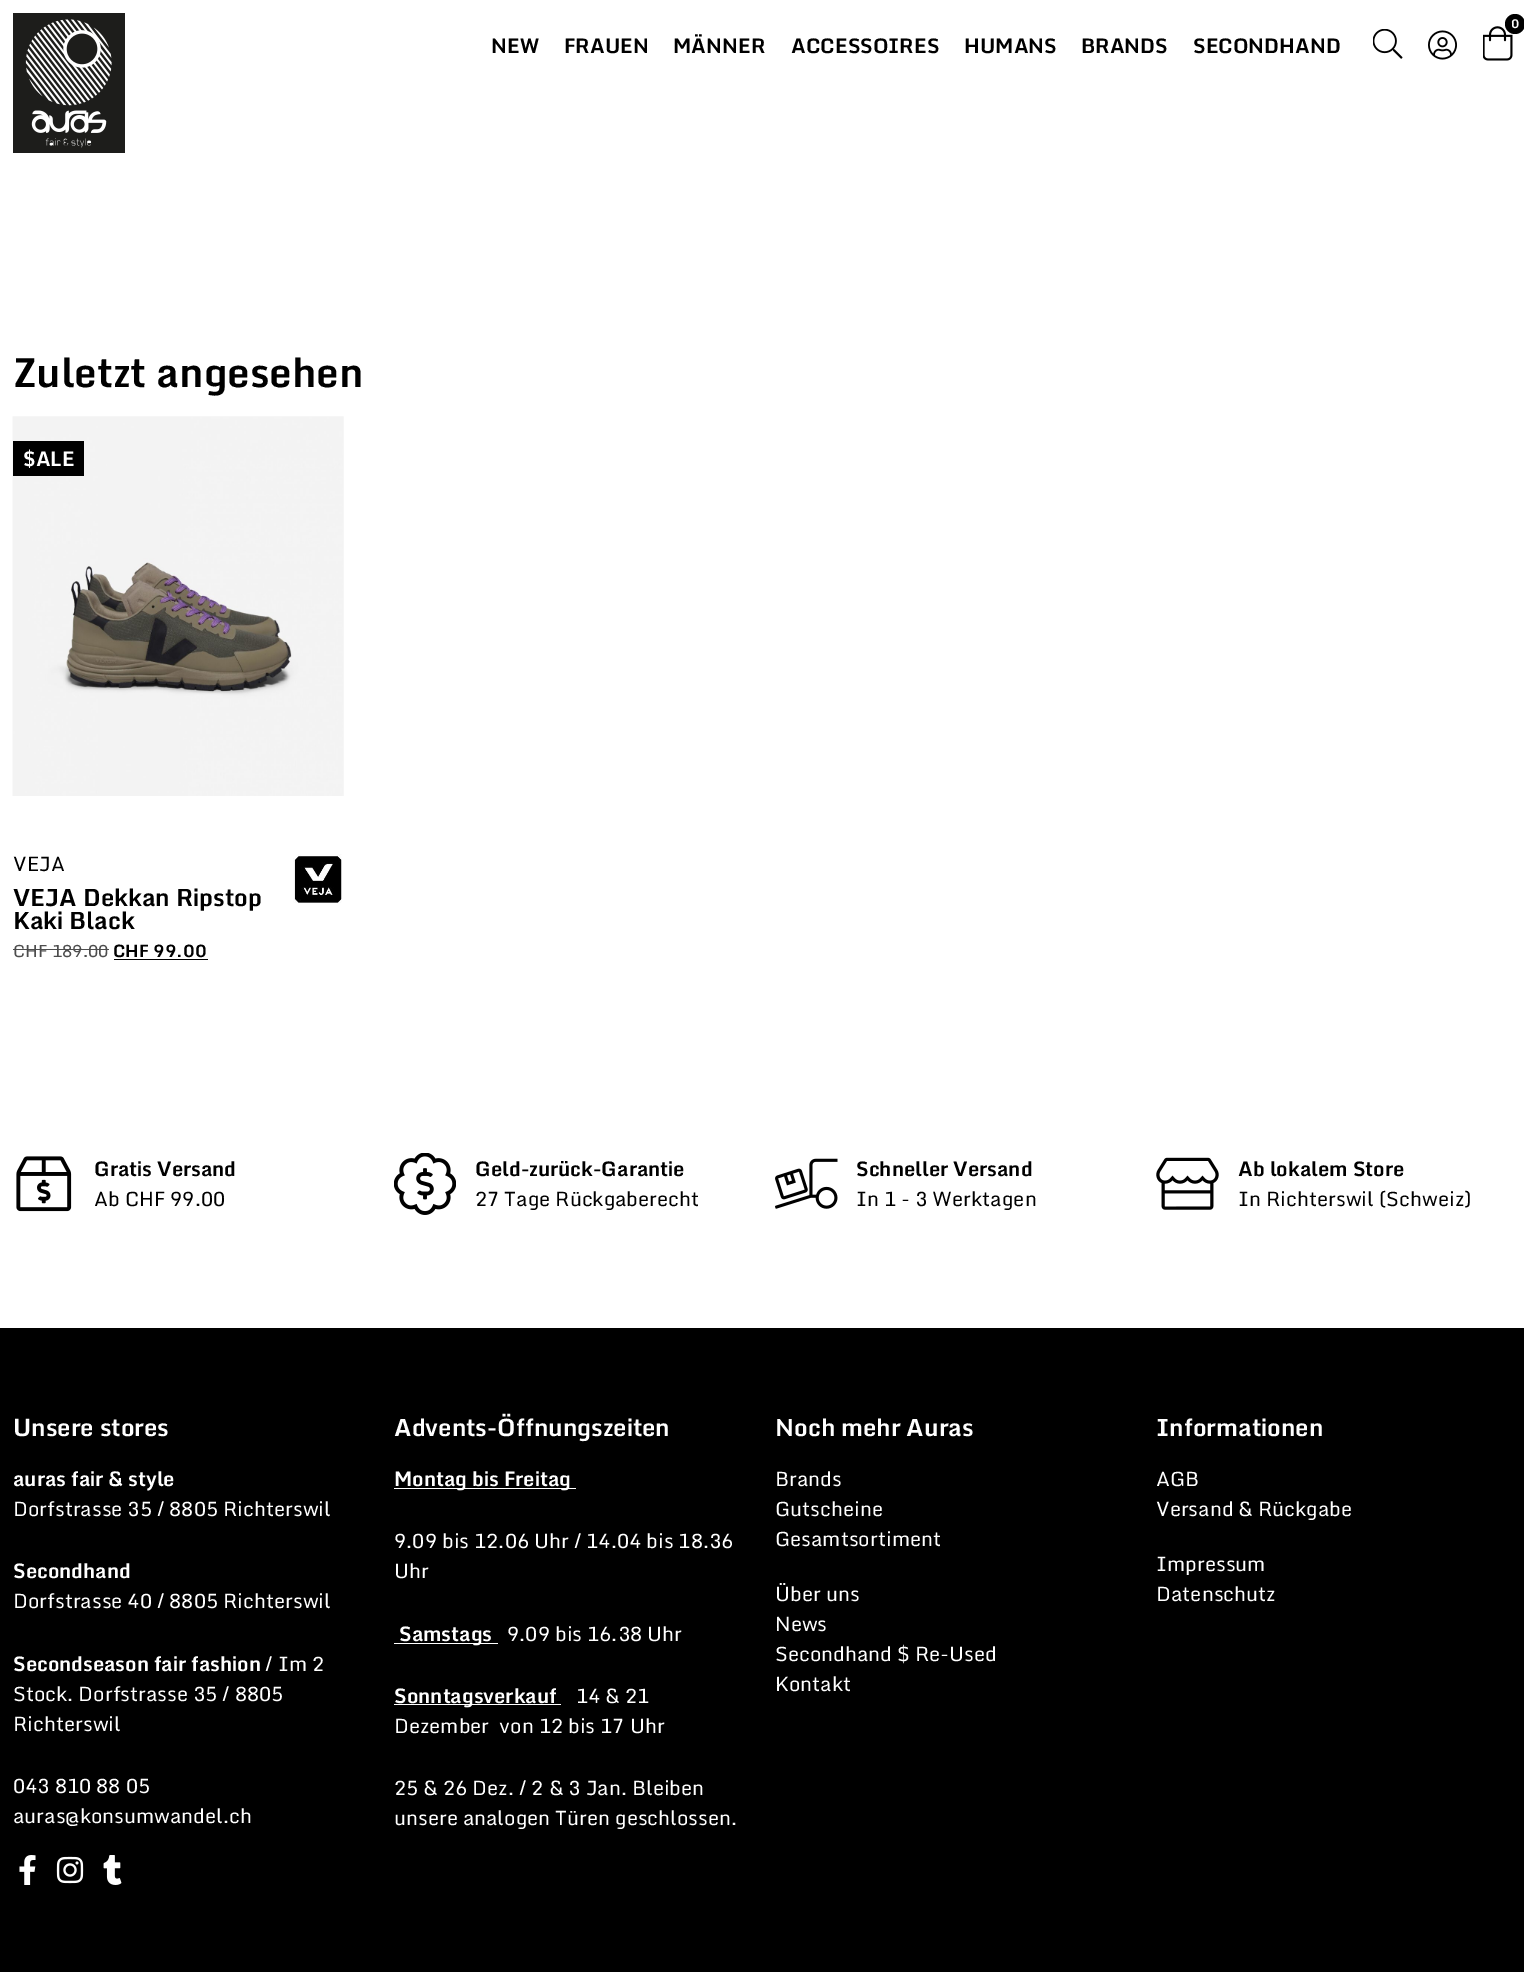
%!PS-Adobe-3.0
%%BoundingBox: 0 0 1524 1972
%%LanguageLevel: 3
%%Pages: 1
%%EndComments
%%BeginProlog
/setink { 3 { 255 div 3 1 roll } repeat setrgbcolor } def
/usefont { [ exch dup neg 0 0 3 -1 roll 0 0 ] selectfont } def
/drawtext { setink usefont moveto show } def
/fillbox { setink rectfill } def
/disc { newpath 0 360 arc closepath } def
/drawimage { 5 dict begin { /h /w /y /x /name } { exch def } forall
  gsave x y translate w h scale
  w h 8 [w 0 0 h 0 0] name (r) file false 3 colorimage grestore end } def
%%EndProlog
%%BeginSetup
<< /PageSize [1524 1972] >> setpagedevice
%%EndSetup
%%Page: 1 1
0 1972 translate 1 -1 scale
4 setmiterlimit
0 0 1524 1972 255 255 255 fillbox
(assets/img1.rgb) 13 13 112 140 drawimage
(assets/img2.rgb) 1483 26 30 35 drawimage
0 0 0 setink
1515 24 10 disc fill
(0) 1511 28 /Monda-Bold 12 255 255 255 drawtext
(NEW) 491 53 /Monda-Bold 20 0 0 0 drawtext
(FRAUEN) 564 53 /Monda-Bold 20 0 0 0 drawtext
(MÄNNER) 673 53 /Monda-Bold 20 0 0 0 drawtext
(ACCESSOIRES) 791 53 /Monda-Bold 20 0 0 0 drawtext
(HUMANS) 964 53 /Monda-Bold 20 0 0 0 drawtext
(BRANDS) 1081 53 /Monda-Bold 20 0 0 0 drawtext
(SECONDHAND) 1193 53 /Monda-Bold 20 0 0 0 drawtext
(assets/img3.rgb) 1373 29 30 30 drawimage
(assets/img4.rgb) 1428 30 29 30 drawimage
(Zuletzt angesehen) 13 387 /Monda-Bold 40 0 0 0 drawtext
(assets/img5.rgb) 12 416 332 380 drawimage
13 441 71 35 0 0 0 fillbox
($ALE) 23 466 /Monda-Bold 20 255 255 255 drawtext
(VEJA) 13 871 /Monda-Regular 20 0 0 0 drawtext
(VEJA Dekkan Ripstop) 13 906 /Monda-Bold 23.75 0 0 0 drawtext
(Kaki Black) 13 929 /Monda-Bold 23.75 0 0 0 drawtext
(CHF 189.00) 13 957 /Monda-Regular 17 77 77 77 drawtext
13 949 96 1 77 77 77 fillbox
(CHF 99.00) 113 957 /Monda-Bold 17 0 0 0 drawtext
114 959 94 1 0 0 0 fillbox
(assets/img6.rgb) 293 854 49 49 drawimage
(assets/img7.rgb) 16 1156 56 56 drawimage
(Gratis Versand) 94 1176 /Monda-Bold 20 0 0 0 drawtext
(Ab CHF 99.00) 94 1206 /Monda-Regular 20 0 0 0 drawtext
(assets/img8.rgb) 394 1153 62 62 drawimage
(Geld-zurück-Garantie) 475 1176 /Monda-Bold 20 0 0 0 drawtext
(27 Tage Rückgaberecht) 475 1206 /Monda-Regular 20 0 0 0 drawtext
(assets/img9.rgb) 775 1158 63 51 drawimage
(Schneller Versand) 856 1176 /Monda-Bold 20 0 0 0 drawtext
(In 1 - 3 Werktagen) 856 1206 /Monda-Regular 20 0 0 0 drawtext
(assets/img10.rgb) 1156 1157 63 53 drawimage
(Ab lokalem Store) 1238 1176 /Monda-Bold 20 0 0 0 drawtext
(In Richterswil \(Schweiz\)) 1238 1206 /Monda-Regular 20 0 0 0 drawtext
0 1328 1524 644 0 0 0 fillbox
(Unsere stores) 13 1436 /Monda-Bold 23.75 255 255 255 drawtext
(auras fair & style) 13 1486 /Monda-Bold 20 255 255 255 drawtext
(Dorfstrasse 35 / 8805 Richterswil) 13 1516 /Monda-Regular 20 255 255 255 drawtext
(Secondhand) 13 1578 /Monda-Bold 20 255 255 255 drawtext
(Dorfstrasse 40 / 8805 Richterswil) 13 1608 /Monda-Regular 20 255 255 255 drawtext
(Secondseason fair fashion) 13 1671 /Monda-Bold 20 255 255 255 drawtext
(/ Im 2) 265 1671 /Monda-Regular 20 255 255 255 drawtext
(Stock. Dorfstrasse 35 / 8805) 13 1701 /Monda-Regular 20 255 255 255 drawtext
(Richterswil) 13 1731 /Monda-Regular 20 255 255 255 drawtext
(043 810 88 05) 13 1793 /Monda-Regular 20 255 255 255 drawtext
(auras@konsumwandel.ch) 13 1823 /Monda-Regular 20 255 255 255 drawtext
(assets/img11.rgb) 19 1855 17 30 drawimage
(assets/img12.rgb) 56 1856 28 28 drawimage
(assets/img13.rgb) 103 1855 19 30 drawimage
(Advents-Öffnungszeiten) 394 1436 /Monda-Bold 23.75 255 255 255 drawtext
394 1488 182 1 255 255 255 fillbox
(Montag bis Freitag) 394 1486 /Monda-Bold 20 255 255 255 drawtext
(9.09 bis 12.06 Uhr / 14.04 bis 18.36) 394 1548 /Monda-Regular 20 255 255 255 drawtext
(Uhr) 394 1578 /Monda-Regular 20 255 255 255 drawtext
394 1643 104 1 255 255 255 fillbox
(Samstags) 399 1641 /Monda-Bold 20 255 255 255 drawtext
(9.09 bis 16.38 Uhr) 507 1641 /Monda-Regular 20 255 255 255 drawtext
394 1704 167 1 255 255 255 fillbox
(Sonntagsverkauf) 394 1703 /Monda-Bold 20 255 255 255 drawtext
(14 & 21) 576 1703 /Monda-Regular 20 255 255 255 drawtext
(Dezember  von 12 bis 17 Uhr) 394 1733 /Monda-Regular 20 255 255 255 drawtext
(25 & 26 Dez. / 2 & 3 Jan. Bleiben) 394 1795 /Monda-Regular 20 255 255 255 drawtext
(unsere analogen Türen geschlossen.) 394 1825 /Monda-Regular 20 255 255 255 drawtext
(Noch mehr Auras) 775 1436 /Monda-Bold 23.75 255 255 255 drawtext
(Brands) 775 1486 /Monda-Regular 20 255 255 255 drawtext
(Gutscheine) 775 1516 /Monda-Regular 20 255 255 255 drawtext
(Gesamtsortiment) 775 1546 /Monda-Regular 20 255 255 255 drawtext
(Über uns) 775 1601 /Monda-Regular 20 255 255 255 drawtext
(News) 775 1631 /Monda-Regular 20 255 255 255 drawtext
(Secondhand $ Re-Used) 775 1661 /Monda-Regular 20 255 255 255 drawtext
(Kontakt) 775 1691 /Monda-Regular 20 255 255 255 drawtext
(Informationen) 1156 1436 /Monda-Bold 23.75 255 255 255 drawtext
(AGB) 1156 1486 /Monda-Regular 20 255 255 255 drawtext
(Versand & Rückgabe) 1156 1516 /Monda-Regular 20 255 255 255 drawtext
(Impressum) 1156 1571 /Monda-Regular 20 255 255 255 drawtext
(Datenschutz) 1156 1601 /Monda-Regular 20 255 255 255 drawtext
showpage
%%EOF
